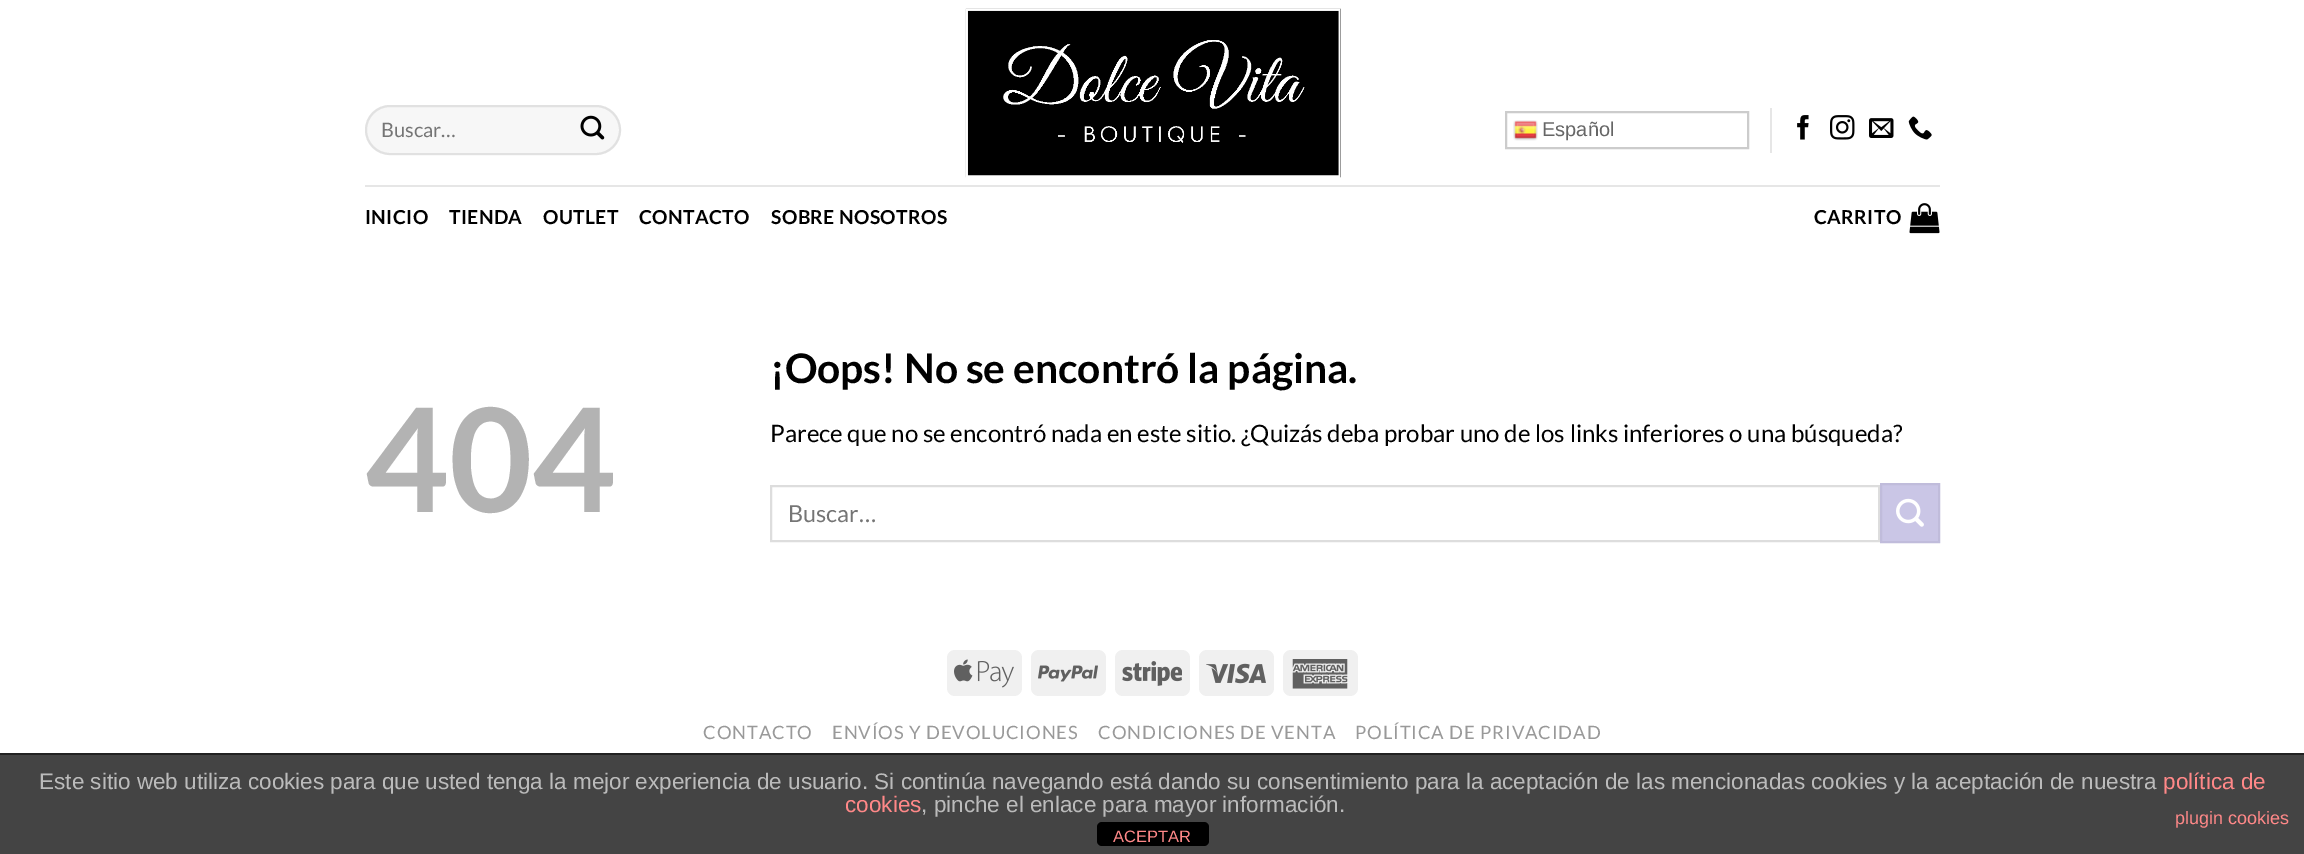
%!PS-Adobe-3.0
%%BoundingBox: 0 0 2304 854
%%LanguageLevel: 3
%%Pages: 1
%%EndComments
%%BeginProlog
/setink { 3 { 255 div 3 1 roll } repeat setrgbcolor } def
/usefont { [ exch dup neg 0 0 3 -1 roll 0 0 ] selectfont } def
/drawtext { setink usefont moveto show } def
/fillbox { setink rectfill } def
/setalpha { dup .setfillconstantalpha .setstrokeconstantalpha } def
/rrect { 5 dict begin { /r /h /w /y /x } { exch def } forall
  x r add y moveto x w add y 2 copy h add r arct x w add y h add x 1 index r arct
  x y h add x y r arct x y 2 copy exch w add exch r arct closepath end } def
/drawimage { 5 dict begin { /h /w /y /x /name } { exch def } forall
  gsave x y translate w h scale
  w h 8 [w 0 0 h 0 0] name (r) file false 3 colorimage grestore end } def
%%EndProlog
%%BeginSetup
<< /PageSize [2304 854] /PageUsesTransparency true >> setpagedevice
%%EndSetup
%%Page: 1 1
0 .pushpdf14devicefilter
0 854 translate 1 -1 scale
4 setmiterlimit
0 0 2304 854 255 255 255 fillbox
247 247 247 setink
365 105 256 50 25 rrect fill
0.09 setalpha
0 0 0 setink
2 setlinewidth
366 106 254 48 24 rrect stroke
1 setalpha
(Buscar…) 381 137 /Lato-Regular 20 117 117 117 drawtext
(assets/img1.rgb) 580 115 25 25 drawimage
(assets/img2.rgb) 965 8 376 170 drawimage
204 204 204 setink
1506 112 242 36 rectstroke
(assets/img3.rgb) 1513 120 25 21 drawimage
(Español) 1542 136 /LiberationSans-Regular 20 102 102 102 drawtext
1770 108 2 45 230 230 230 fillbox
(assets/img4.rgb) 1797 115 12 25 drawimage
(assets/img5.rgb) 1830 115 25 25 drawimage
(assets/img6.rgb) 1869 118 25 20 drawimage
(assets/img7.rgb) 1908 116 24 24 drawimage
365 185 1575 2 230 230 230 fillbox
/Lato-Bold 19.25 usefont
0 0 0 setink
365 224 moveto 0.4 0 (INICIO) ashow
449 224 moveto 0.4 0 (TIENDA) ashow
543 224 moveto 0.4 0 (OUTLET) ashow
639 224 moveto 0.4 0 (CONTACTO) ashow
771 224 moveto 0.4 0 (SOBRE NOSOTROS) ashow
1814 224 moveto 0.4 0 (CARRITO) ashow
(assets/img8.rgb) 1909 203 31 31 drawimage
(404) 365 512 /Lato-Bold 144 179 179 179 drawtext
(¡Oops! No se encontró la página.) 770 383 /Lato-Bold 40.75 0 0 0 drawtext
(Parece que no se encontró nada en este sitio. ¿Quizás deba probar uno de los links inferiores o una búsqueda?) 770 442 /Lato-Regular 24 0 0 0 drawtext
221 221 221 setink
771 486 1108 55 rectstroke
(Buscar…) 788 522 /Lato-Regular 23.5 117 117 117 drawtext
202 198 230 setink
1881 484 moveto 1939 484 lineto 1939 542 lineto 1881 542 lineto closepath gsave fill grestore
192 188 219 setink
stroke
(assets/img9.rgb) 1896 498 28 29 drawimage
240 240 240 setink
947 650 75 46 8 rrect fill
(assets/img10.rgb) 954 659 60 29 drawimage
1031 650 75 46 8 rrect fill
(assets/img11.rgb) 1038 665 60 17 drawimage
1115 650 75 46 8 rrect fill
(assets/img12.rgb) 1122 661 60 25 drawimage
1199 650 75 46 8 rrect fill
(assets/img13.rgb) 1206 663 60 21 drawimage
1283 650 75 46 8 rrect fill
(assets/img14.rgb) 1292 659 56 30 drawimage
/Lato-Regular 18.4 usefont
153 153 153 setink
703 739 moveto 0.9 0 (CONTACTO) ashow
832 739 moveto 0.9 0 (ENVÍOS Y DEVOLUCIONES) ashow
1098 739 moveto 0.9 0 (CONDICIONES DE VENTA) ashow
1355 739 moveto 0.9 0 (POLÍTICA DE PRIVACIDAD) ashow
0 755 2304 99 68 68 68 fillbox
0 753 2304 2 34 34 34 fillbox
(Este sitio web utiliza cookies para que usted tenga la mejor experiencia de usuario. Si continúa navegando está dando su consentimiento para la aceptación de las mencionadas cookies y la aceptación de nuestra) 39 789 /LiberationSans-Regular 22.5 187 187 187 drawtext
(política de) 2163 789 /LiberationSans-Regular 22.5 255 136 136 drawtext
(cookies) 845 812 /LiberationSans-Regular 22.5 255 136 136 drawtext
(, pinche el enlace para mayor información.) 921 812 /LiberationSans-Regular 22.5 187 187 187 drawtext
(plugin cookies) 2175 824 /LiberationSans-Regular 18 255 136 136 drawtext
0 0 0 setink
1097 822 112 24 5 rrect fill
(ACEPTAR) 1113 842 /LiberationSans-Regular 16.5 255 136 136 drawtext
.poppdf14devicefilter showpage
%%EOF
